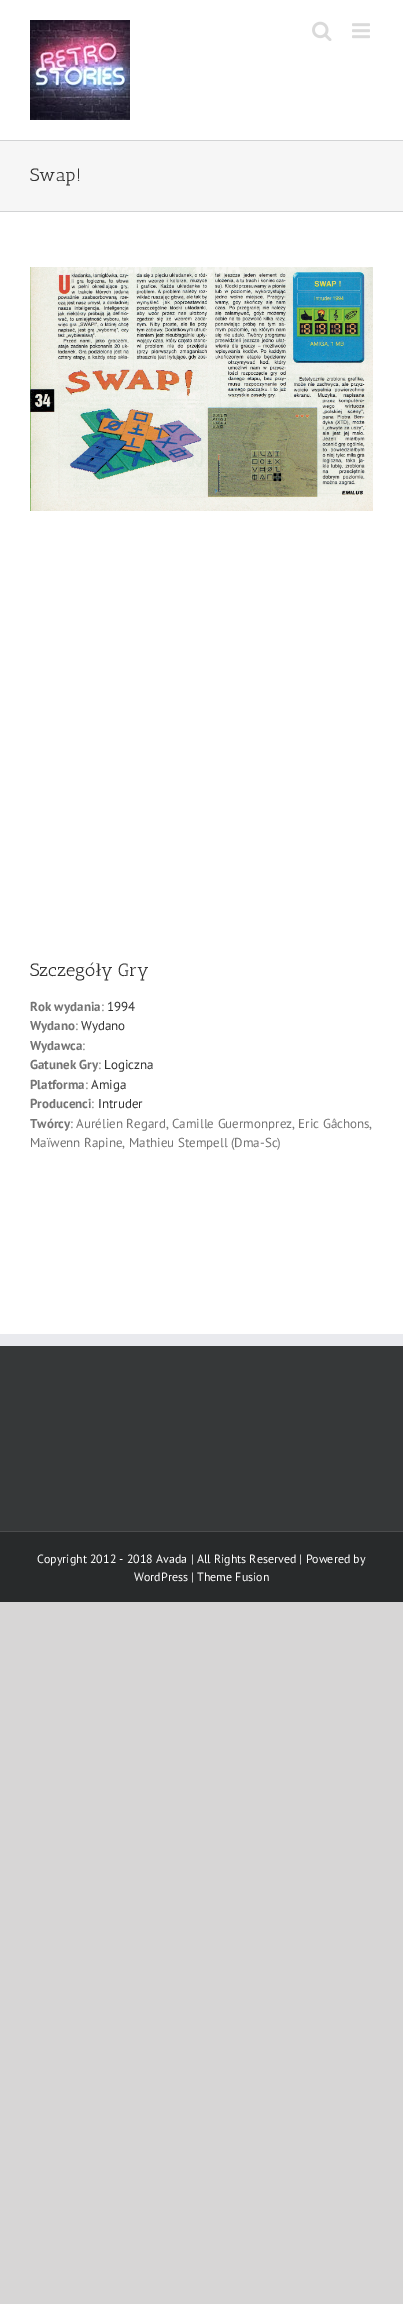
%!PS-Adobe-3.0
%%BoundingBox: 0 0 403 2304
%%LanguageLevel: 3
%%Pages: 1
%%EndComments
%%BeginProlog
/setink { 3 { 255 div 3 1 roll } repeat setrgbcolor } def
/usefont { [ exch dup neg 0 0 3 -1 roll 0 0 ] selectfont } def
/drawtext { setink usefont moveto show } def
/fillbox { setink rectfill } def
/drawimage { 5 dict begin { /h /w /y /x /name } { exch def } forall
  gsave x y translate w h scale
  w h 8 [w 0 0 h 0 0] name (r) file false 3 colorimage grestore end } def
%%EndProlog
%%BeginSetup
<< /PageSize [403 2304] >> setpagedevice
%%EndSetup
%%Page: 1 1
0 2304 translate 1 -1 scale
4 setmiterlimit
0 0 403 2304 215 214 214 fillbox
0 0 403 1334 255 255 255 fillbox
(assets/img1.rgb) 30 20 100 100 drawimage
(assets/img2.rgb) 312 21 20 20 drawimage
(assets/img3.rgb) 352 23 18 16 drawimage
0 141 403 70 246 246 246 fillbox
0 140 403 1 210 211 212 fillbox
0 211 403 1 210 211 212 fillbox
(Swap!) 30 181 /AnticSlab-Regular 18 51 51 51 drawtext
(assets/img4.rgb) 30 267 343 244 drawimage
(Szczegó) 30 976 /AnticSlab-Regular 18 51 51 51 drawtext
(ł) 96 976 /LiberationSerif-Regular 18 51 51 51 drawtext
(y Gry) 101 976 /AnticSlab-Regular 18 51 51 51 drawtext
(Rok wydania) 30 1011 /PTSans-Bold 13 116 116 116 drawtext
(:) 101 1011 /PTSans-Regular 13 116 116 116 drawtext
(1994) 107 1011 /PTSans-Regular 13 51 51 51 drawtext
(Wydano) 30 1030 /PTSans-Bold 13 116 116 116 drawtext
(:) 75 1030 /PTSans-Regular 13 116 116 116 drawtext
(Wydano) 81 1030 /PTSans-Regular 13 51 51 51 drawtext
(Wydawca) 30 1050 /PTSans-Bold 13 116 116 116 drawtext
(:) 82 1050 /PTSans-Regular 13 116 116 116 drawtext
(Gatunek Gry) 30 1069 /PTSans-Bold 13 116 116 116 drawtext
(:) 98 1069 /PTSans-Regular 13 116 116 116 drawtext
(Logiczna) 104 1069 /PTSans-Regular 13 51 51 51 drawtext
(Platforma) 30 1089 /PTSans-Bold 13 116 116 116 drawtext
(:) 85 1089 /PTSans-Regular 13 116 116 116 drawtext
(Amiga) 91 1089 /PTSans-Regular 13 51 51 51 drawtext
(Producenci) 30 1108 /PTSans-Bold 13 116 116 116 drawtext
(:) 91 1108 /PTSans-Regular 13 116 116 116 drawtext
(Intruder) 98 1108 /PTSans-Regular 13 51 51 51 drawtext
(Twórcy) 30 1128 /PTSans-Bold 13 116 116 116 drawtext
(: Aurélien Regard, Camille Guermonprez, Eric Gâchons,) 70 1128 /PTSans-Regular 13 116 116 116 drawtext
(Maïwenn Rapine, Mathieu Stempell \(Dma-Sc\)) 30 1147 /PTSans-Regular 13 116 116 116 drawtext
0 1346 403 185 54 56 57 fillbox
0 1334 403 12 233 234 238 fillbox
0 1532 403 70 40 42 43 fillbox
0 1531 403 1 75 76 77 fillbox
(Copyright 2012 - 2018 Avada | All Rights Reserved | Powered by) 37 1563 /PTSans-Regular 12 255 255 255 drawtext
(WordPress | Theme Fusion) 134 1581 /PTSans-Regular 12 255 255 255 drawtext
showpage
%%EOF
